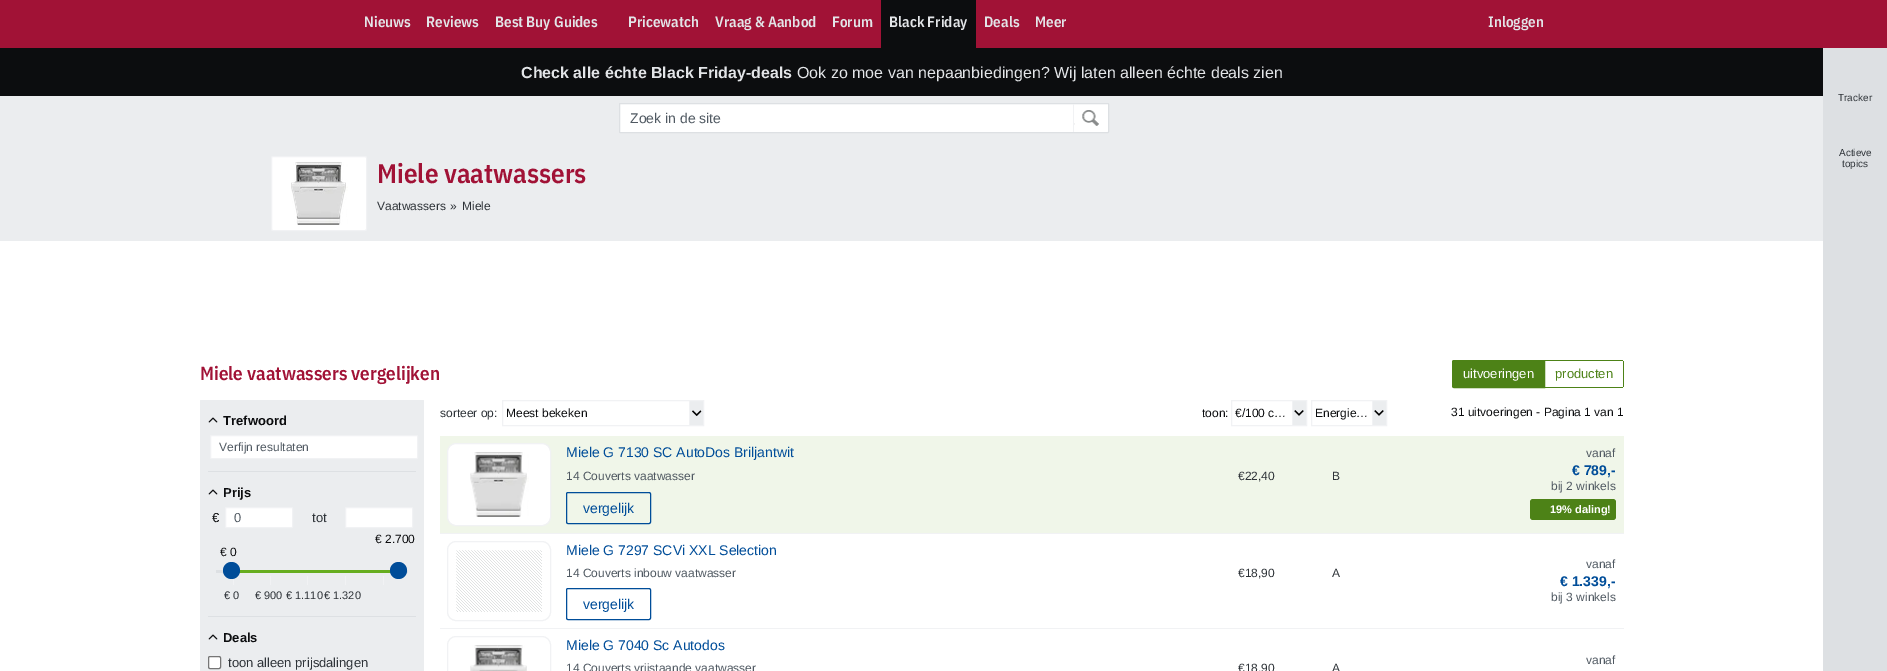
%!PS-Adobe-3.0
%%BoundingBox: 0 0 1887 671
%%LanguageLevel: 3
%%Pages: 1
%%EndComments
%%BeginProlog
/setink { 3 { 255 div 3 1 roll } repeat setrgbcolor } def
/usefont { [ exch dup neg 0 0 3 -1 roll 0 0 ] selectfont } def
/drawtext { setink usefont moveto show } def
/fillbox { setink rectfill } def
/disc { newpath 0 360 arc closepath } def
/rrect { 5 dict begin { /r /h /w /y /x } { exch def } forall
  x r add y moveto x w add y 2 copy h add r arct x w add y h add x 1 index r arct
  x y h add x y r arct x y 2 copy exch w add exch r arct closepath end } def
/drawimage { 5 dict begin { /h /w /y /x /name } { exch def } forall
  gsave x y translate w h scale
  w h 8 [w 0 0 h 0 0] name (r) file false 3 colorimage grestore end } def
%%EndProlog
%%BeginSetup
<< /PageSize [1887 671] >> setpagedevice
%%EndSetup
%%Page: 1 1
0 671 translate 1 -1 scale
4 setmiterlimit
0 0 1887 671 255 255 255 fillbox
0 96 1823 145 235 237 239 fillbox
0 0 1887 48 161 18 54 fillbox
(Nieuws) 364 27 /IBMPlexSansCondensed-SemiBold 15 227 229 232 drawtext
(Reviews) 426 27 /IBMPlexSansCondensed-SemiBold 15 227 229 232 drawtext
(Best Buy Guides) 495 27 /IBMPlexSansCondensed-SemiBold 15 227 229 232 drawtext
(Pricewatch) 628 27 /IBMPlexSansCondensed-SemiBold 15 227 229 232 drawtext
(Vraag & Aanbod) 715 27 /IBMPlexSansCondensed-SemiBold 15 227 229 232 drawtext
(Forum) 832 27 /IBMPlexSansCondensed-SemiBold 15 227 229 232 drawtext
881 0 95 48 12 13 15 fillbox
(Black Friday) 889 27 /IBMPlexSansCondensed-SemiBold 15 227 229 232 drawtext
(Deals) 984 27 /IBMPlexSansCondensed-SemiBold 15 227 229 232 drawtext
(Meer) 1035 27 /IBMPlexSansCondensed-SemiBold 15 227 229 232 drawtext
(Inloggen) 1488 27 /IBMPlexSansCondensed-SemiBold 15 227 229 232 drawtext
0 48 1823 48 12 13 15 fillbox
(Check alle échte Black Friday-deals) 521 78 /LiberationSans-Bold 16 227 229 232 drawtext
(Ook zo moe van nepaanbiedingen? Wij laten alleen échte deals zien) 797 78 /LiberationSans-Regular 16 227 229 232 drawtext
255 255 255 setink
619.5 103.5 489 29 0.5 rrect gsave fill grestore
221 224 227 setink
stroke
(Zoek in de site) 630 123 /LiberationSans-Regular 14 80 89 98 drawtext
(assets/img1.rgb) 1074 110 25 16 drawimage
1073 104 1 28 241 242 244 fillbox
255 255 255 setink
271.5 156.5 95 74 1.5 rrect gsave fill grestore
241 242 244 setink
stroke
(assets/img2.rgb) 291 162 57 63 drawimage
(Miele vaatwassers) 377 183 /IBMPlexSansCondensed-SemiBold 27 161 18 54 drawtext
(Vaatwassers) 377 210 /LiberationSans-Regular 12 46 51 56 drawtext
(») 450 210 /LiberationSans-Regular 12 46 51 56 drawtext
(Miele) 462 210 /LiberationSans-Regular 12 46 51 56 drawtext
1823 48 64 623 221 224 227 fillbox
(Tracker) 1838 101 /LiberationSans-Regular 10 46 51 56 drawtext
(Actieve) 1839 156 /LiberationSans-Regular 10 46 51 56 drawtext
(topics) 1842 167 /LiberationSans-Regular 10 46 51 56 drawtext
(Miele vaatwassers vergelijken) 200 380 /IBMPlexSansCondensed-SemiBold 19 161 18 54 drawtext
235 237 239 setink
201 400 moveto 423 400 lineto 423.5 400 424 400.5 424 401 curveto 424 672 lineto 200 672 lineto 200 401 lineto 200 400.5 200.5 400 201 400 curveto closepath fill
(assets/img3.rgb) 208 417 10 6 drawimage
(Trefwoord) 223 425 /LiberationSans-Bold 13 12 13 15 drawtext
255 255 255 setink
210.5 435.5 207 23 0.5 rrect gsave fill grestore
241 242 244 setink
stroke
(Verfijn resultaten) 219 451 /LiberationSans-Regular 12 80 89 98 drawtext
208 471 208 1 221 224 227 fillbox
(assets/img3.rgb) 208 489 10 6 drawimage
(Prijs) 223 497 /LiberationSans-Bold 13 12 13 15 drawtext
(€) 212 522 /LiberationSans-Regular 13 12 13 15 drawtext
255 255 255 setink
225.5 507.5 67 20 0.5 rrect gsave fill grestore
241 242 244 setink
stroke
(0) 234 522 /LiberationSans-Regular 13 80 89 98 drawtext
(tot) 312 522 /LiberationSans-Regular 13 46 51 56 drawtext
255 255 255 setink
345.5 507.5 67 20 0.5 rrect gsave fill grestore
241 242 244 setink
stroke
216 570 192 3 221 224 227 fillbox
(€ 2.700) 375 543 /LiberationSans-Regular 12 12 13 15 drawtext
(€ 0) 220 556 /LiberationSans-Regular 12 12 13 15 drawtext
231 570 167 3 102 173 31 fillbox
233 576 1 9 241 242 244 fillbox
0 77 153 setink
231.5 570.5 8.5 disc fill
398.5 570.5 8.5 disc fill
383 576 1 9 241 242 244 fillbox
(€ 0) 224 599 /LiberationSans-Regular 11 46 51 56 drawtext
270 576 1 9 241 242 244 fillbox
(€ 900) 255 599 /LiberationSans-Regular 11 46 51 56 drawtext
307 576 1 9 241 242 244 fillbox
(€ 1.110) 286 599 /LiberationSans-Regular 11 46 51 56 drawtext
345 576 1 9 241 242 244 fillbox
(€ 1.320) 324 599 /LiberationSans-Regular 11 46 51 56 drawtext
208 616 208 1 221 224 227 fillbox
(assets/img3.rgb) 208 634 10 6 drawimage
(Deals) 223 642 /LiberationSans-Bold 13 12 13 15 drawtext
255 255 255 setink
208.5 656.5 12 12 1.5 rrect gsave fill grestore
118 118 118 setink
stroke
(toon alleen prijsdalingen) 228 667 /LiberationSans-Regular 13 46 51 56 drawtext
77 130 23 setink
1454 360.5 moveto 1544.5 360.5 lineto 1544.5 387.5 lineto 1454 387.5 lineto 1453 387.5 1452.5 387 1452.5 386 curveto 1452.5 362 lineto 1452.5 361 1453 360.5 1454 360.5 curveto closepath gsave fill grestore
stroke
(uitvoeringen) 1463 378 /LiberationSans-Regular 13 255 255 255 drawtext
1545 360 78 1 77 130 23 fillbox
1623 361 1 26 77 130 23 fillbox
1545 387 78 1 77 130 23 fillbox
(producten) 1555 378 /LiberationSans-Regular 13 77 130 23 drawtext
(sorteer op:) 440 417 /LiberationSans-Regular 12 46 51 56 drawtext
690 401 13 24 235 237 239 fillbox
241 242 244 setink
502.5 400.5 201 25 rectstroke
689 401 1 24 241 242 244 fillbox
(Meest bekeken) 506 417 /LiberationSans-Regular 12 12 13 15 drawtext
(assets/img4.rgb) 692 410 10 6 drawimage
(toon:) 1202 417 /LiberationSans-Regular 12 12 13 15 drawtext
1293 401 13 24 235 237 239 fillbox
241 242 244 setink
1231.5 400.5 75 25 rectstroke
1292 401 1 24 241 242 244 fillbox
(€/100 c…) 1235 417 /LiberationSans-Regular 12 12 13 15 drawtext
(assets/img5.rgb) 1294 410 10 6 drawimage
1373 401 13 24 235 237 239 fillbox
241 242 244 setink
1311.5 400.5 75 25 rectstroke
1372 401 1 24 241 242 244 fillbox
(Energie…) 1315 417 /LiberationSans-Regular 12 12 13 15 drawtext
(assets/img5.rgb) 1374 410 10 6 drawimage
(31 uitvoeringen - Pagina 1 van 1) 1451 416 /LiberationSans-Regular 12 12 13 15 drawtext
440 436 1184 97 240 246 233 fillbox
440 533 1184 1 241 242 244 fillbox
255 255 255 setink
452 448 94 73 4 rrect gsave fill grestore
8 setlinewidth
stroke
(assets/img6.rgb) 470 452 59 65 drawimage
241 242 244 setink
1 setlinewidth
447.5 443.5 103 82 8.5 rrect stroke
(Miele G 7130 SC AutoDos Briljantwit) 566 457 /LiberationSans-Regular 14 0 77 153 drawtext
(14 Couverts vaatwasser) 566 480 /LiberationSans-Regular 12 80 89 98 drawtext
(€22,40) 1238 480 /LiberationSans-Regular 12 46 51 56 drawtext
(B) 1332 480 /LiberationSans-Regular 12 46 51 56 drawtext
0 77 153 setink
566.5 492.5 84 31 1.5 rrect stroke
(vergelijk) 583 513 /LiberationSans-Regular 14 0 77 153 drawtext
(vanaf) 1586 457 /LiberationSans-Regular 12 80 89 98 drawtext
(€ 789,-) 1572 475 /LiberationSans-Bold 14 0 77 153 drawtext
(bij 2 winkels) 1551 490 /LiberationSans-Regular 12 80 89 98 drawtext
77 130 23 setink
1530 499 86 21 3 rrect fill
(19% daling!) 1550 513 /LiberationSans-Bold 11 255 255 255 drawtext
440 628 1184 1 241 242 244 fillbox
(assets/img7.rgb) 448 542 102 78 drawimage
255 255 255 setink
8 setlinewidth
452 546 94 70 4 rrect stroke
241 242 244 setink
1 setlinewidth
447.5 541.5 103 79 8.5 rrect stroke
(Miele G 7297 SCVi XXL Selection) 566 555 /LiberationSans-Regular 14 0 77 153 drawtext
(14 Couverts inbouw vaatwasser) 566 577 /LiberationSans-Regular 12 80 89 98 drawtext
(€18,90) 1238 577 /LiberationSans-Regular 12 46 51 56 drawtext
(A) 1332 577 /LiberationSans-Regular 12 46 51 56 drawtext
0 77 153 setink
566.5 588.5 84 31 1.5 rrect stroke
(vergelijk) 583 609 /LiberationSans-Regular 14 0 77 153 drawtext
(vanaf) 1586 568 /LiberationSans-Regular 12 80 89 98 drawtext
(€ 1.339,-) 1560 586 /LiberationSans-Bold 14 0 77 153 drawtext
(bij 3 winkels) 1551 601 /LiberationSans-Regular 12 80 89 98 drawtext
(assets/img8.rgb) 470 645 57 26 drawimage
241 242 244 setink
447.5 636.5 103 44 8.5 rrect stroke
(Miele G 7040 Sc Autodos) 566 650 /LiberationSans-Regular 14 0 77 153 drawtext
(14 Couverts vrijstaande vaatwasser) 566 672 /LiberationSans-Regular 12 80 89 98 drawtext
(€18,90) 1238 672 /LiberationSans-Regular 12 46 51 56 drawtext
(A) 1332 672 /LiberationSans-Regular 12 46 51 56 drawtext
(vanaf) 1586 664 /LiberationSans-Regular 12 80 89 98 drawtext
showpage
%%EOF
